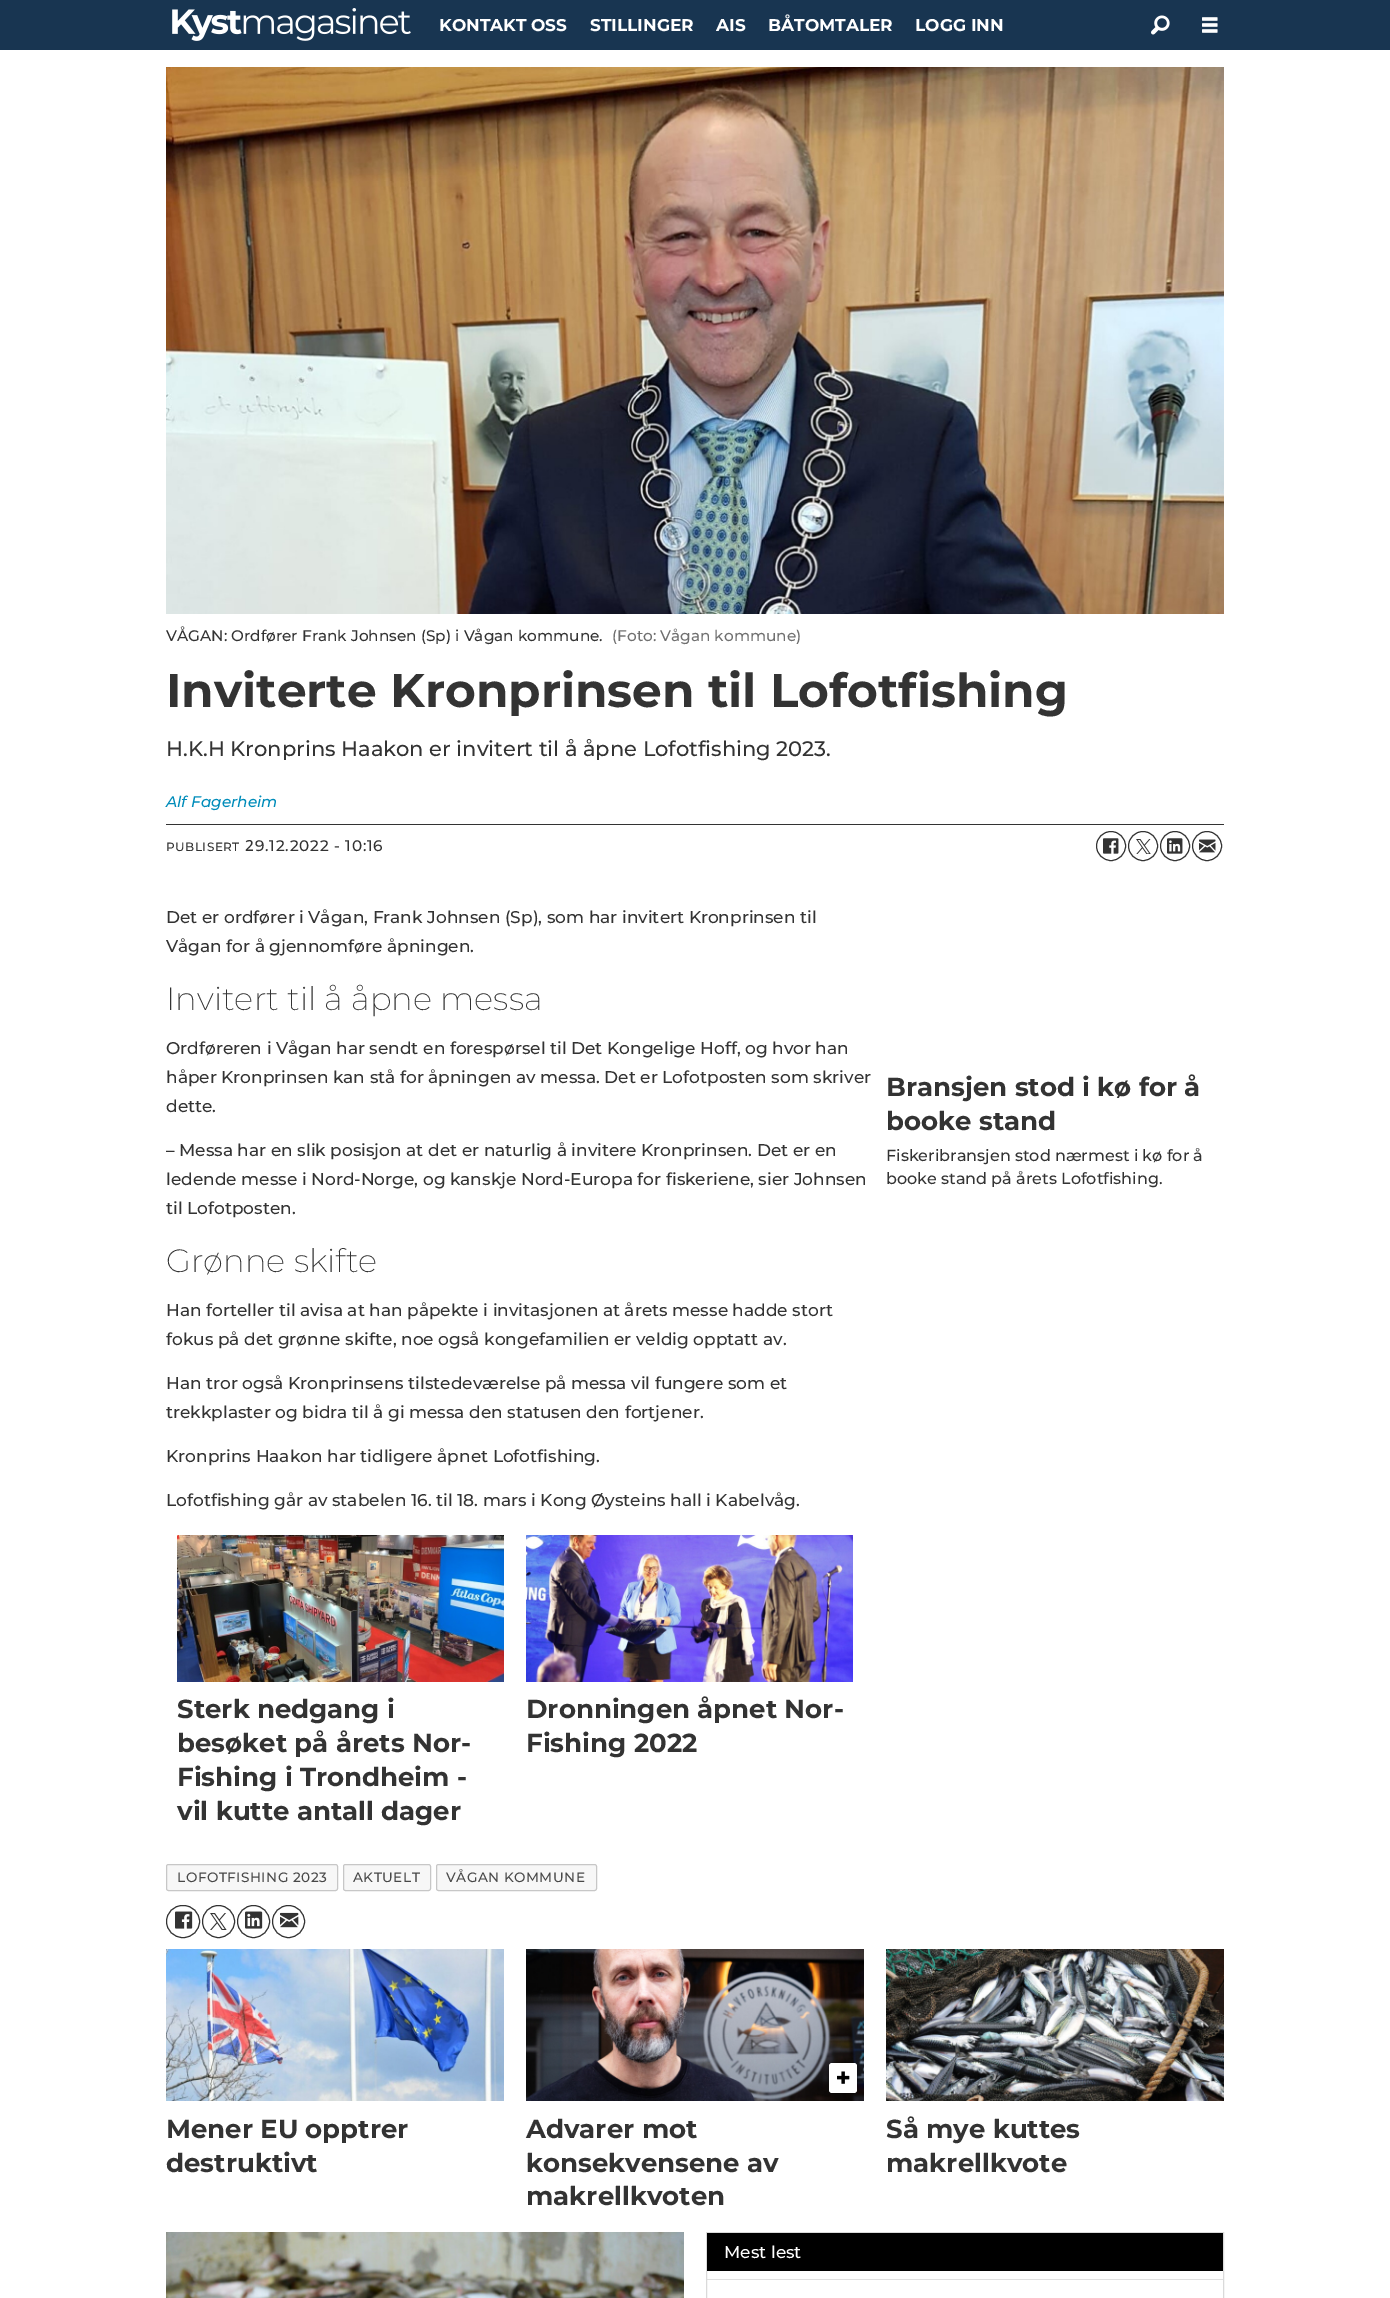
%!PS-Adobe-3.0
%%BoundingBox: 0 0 1390 2298
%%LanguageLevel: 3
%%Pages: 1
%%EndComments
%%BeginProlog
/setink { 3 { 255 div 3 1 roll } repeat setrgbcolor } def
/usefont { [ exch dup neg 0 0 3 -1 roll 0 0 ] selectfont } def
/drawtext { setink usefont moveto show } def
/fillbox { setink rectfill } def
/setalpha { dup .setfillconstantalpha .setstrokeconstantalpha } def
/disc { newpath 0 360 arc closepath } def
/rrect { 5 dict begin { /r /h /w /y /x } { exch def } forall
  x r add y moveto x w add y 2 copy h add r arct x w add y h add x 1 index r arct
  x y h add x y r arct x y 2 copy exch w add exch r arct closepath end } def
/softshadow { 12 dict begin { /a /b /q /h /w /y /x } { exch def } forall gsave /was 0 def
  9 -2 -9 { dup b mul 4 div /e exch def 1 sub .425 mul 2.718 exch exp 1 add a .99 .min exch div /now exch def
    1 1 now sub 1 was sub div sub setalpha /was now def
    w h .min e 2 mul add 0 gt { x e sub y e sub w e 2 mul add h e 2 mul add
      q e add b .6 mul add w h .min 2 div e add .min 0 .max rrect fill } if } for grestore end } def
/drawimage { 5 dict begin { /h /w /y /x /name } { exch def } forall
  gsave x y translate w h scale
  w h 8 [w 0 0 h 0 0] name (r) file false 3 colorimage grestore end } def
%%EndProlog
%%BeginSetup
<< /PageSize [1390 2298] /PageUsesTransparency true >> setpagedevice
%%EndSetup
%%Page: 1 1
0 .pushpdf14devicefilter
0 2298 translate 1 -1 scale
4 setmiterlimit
0 0 1390 2298 255 255 255 fillbox
0 0 1390 50 24 53 81 fillbox
(assets/img1.rgb) 172 8 239 33 drawimage
(KONTAKT OSS) 439 31 /Montserrat-Bold 17 255 255 255 drawtext
(STILLINGER) 590 31 /Montserrat-Bold 17 255 255 255 drawtext
(AIS) 716 31 /Montserrat-Bold 17 255 255 255 drawtext
(BÅTOMTALER) 768 31 /Montserrat-Bold 17 255 255 255 drawtext
(LOGG INN) 915 31 /Montserrat-Bold 17 255 255 255 drawtext
(assets/img2.rgb) 1151 15 19 20 drawimage
(assets/img3.rgb) 1202 17 16 16 drawimage
(assets/img4.rgb) 166 67 1058 547 drawimage
(VÅGAN: Ordfører Frank Johnsen \(Sp\) i Vågan kommune.) 166 641 /Montserrat-Medium 15.3 51 51 51 drawtext
(\(Foto: Vågan kommune\)) 612 641 /Montserrat-Medium 15.3 112 112 112 drawtext
(Inviterte Kronprinsen til Lofotfishing) 166 707 /Montserrat-Bold 47 51 51 51 drawtext
(H.K.H Kronprins Haakon er invitert til å åpne Lofotfishing 2023.) 166 756 /Montserrat-Medium 21 51 51 51 drawtext
166 824 1058 1 51 51 51 fillbox
(Alf Fagerheim) 166 807 /Montserrat-MediumItalic 15.3 0 140 186 drawtext
/Montserrat-Medium 12 usefont
51 51 51 setink
166 851 moveto 0.5 0 (PUBLISERT) ashow
/NotoSans-Medium 15.3 usefont
245 851 moveto 0.75 0 (2) ashow
/Montserrat-Medium 15.3 usefont
255 851 moveto 0.75 0 (9.12.2022 - 10:16) ashow
1111 846 14.5 disc stroke
(assets/img5.rgb) 1103 838 16 16 drawimage
1143 846 14.5 disc stroke
(assets/img6.rgb) 1136 839 15 15 drawimage
1175 846 14.5 disc stroke
(assets/img7.rgb) 1167 838 16 16 drawimage
1207 846 14.5 disc stroke
(assets/img8.rgb) 1199 839 17 14 drawimage
(Det er ordfører i Vågan, Frank Johnsen \(Sp\), som har invitert Kronprinsen til) 166 923 /Montserrat-Medium 17 51 51 51 drawtext
(Vågan for å gjennomføre åpningen.) 166 952 /Montserrat-Medium 17 51 51 51 drawtext
(Invitert til å åpne messa) 166 1010 /Montserrat-ExtraLight 32.25 51 51 51 drawtext
(Ordføreren i Vågan har sendt en forespørsel til Det Kongelige Hoff, og hvor han) 166 1054 /Montserrat-Medium 17 51 51 51 drawtext
(håper Kronprinsen kan stå for åpningen av messa. Det er Lofotposten som skriver) 166 1083 /Montserrat-Medium 17 51 51 51 drawtext
(dette.) 166 1112 /Montserrat-Medium 17 51 51 51 drawtext
(Bransjen stod i kø for å) 886 1096 /Montserrat-Bold 26 51 51 51 drawtext
(booke stand) 886 1130 /Montserrat-Bold 26 51 51 51 drawtext
(Fiskeribransjen stod nærmest i kø for å) 886 1161 /Montserrat-Medium 16 51 51 51 drawtext
(booke stand på årets Lofotfishing.) 886 1184 /Montserrat-Medium 16 51 51 51 drawtext
(– Messa har en slik posisjon at det er naturlig å invitere Kronprinsen. Det er en) 166 1156 /Montserrat-Medium 17 51 51 51 drawtext
(ledende messe i Nord-Norge, og kanskje Nord-Europa for fiskeriene, sier Johnsen) 166 1185 /Montserrat-Medium 17 51 51 51 drawtext
(til Lofotposten.) 166 1214 /Montserrat-Medium 17 51 51 51 drawtext
(Grønne skifte) 166 1272 /Montserrat-ExtraLight 32.25 51 51 51 drawtext
(Han forteller til avisa at han påpekte i invitasjonen at årets messe hadde stort) 166 1316 /Montserrat-Medium 17 51 51 51 drawtext
(fokus på det grønne skifte, noe også kongefamilien er veldig opptatt av.) 166 1345 /Montserrat-Medium 17 51 51 51 drawtext
(Han tror også Kronprinsens tilstedeværelse på messa vil fungere som et) 166 1389 /Montserrat-Medium 17 51 51 51 drawtext
(trekkplaster og bidra til å gi messa den statusen den fortjener.) 166 1418 /Montserrat-Medium 17 51 51 51 drawtext
(Kronprins Haakon har tidligere åpnet Lofotfishing.) 166 1462 /Montserrat-Medium 17 51 51 51 drawtext
(Lofotfishing går av stabelen 16. til 18. mars i Kong Øysteins hall i Kabelvåg.) 166 1506 /Montserrat-Medium 17 51 51 51 drawtext
(assets/img9.rgb) 177 1535 327 147 drawimage
(Sterk nedgang i) 177 1718 /Montserrat-Bold 26 51 51 51 drawtext
(besøket på årets Nor-) 177 1752 /Montserrat-Bold 26 51 51 51 drawtext
(Fishing i Trondheim -) 177 1786 /Montserrat-Bold 26 51 51 51 drawtext
(vil kutte antall dager) 177 1820 /Montserrat-Bold 26 51 51 51 drawtext
(assets/img10.rgb) 526 1535 327 147 drawimage
(Dronningen åpnet Nor-) 526 1718 /Montserrat-Bold 26 51 51 51 drawtext
(Fishing 2022) 526 1752 /Montserrat-Bold 26 51 51 51 drawtext
247 247 247 setink
166.5 1864.5 171 26 2 rrect gsave fill grestore
199 199 199 setink
stroke
/Montserrat-Medium 13.6 usefont
72 72 72 setink
177 1882 moveto 0.5 0 (LOFOTFISHING 2023) ashow
247 247 247 setink
343.5 1864.5 87 26 2 rrect gsave fill grestore
199 199 199 setink
stroke
72 72 72 setink
353 1882 moveto 0.5 0 (AKTUELT) ashow
247 247 247 setink
436.5 1864.5 160 26 2 rrect gsave fill grestore
199 199 199 setink
stroke
72 72 72 setink
446 1882 moveto 0.5 0 (VÅGAN KOMMUNE) ashow
51 51 51 setink
166.5 1905.5 33 32 16 rrect stroke
(assets/img11.rgb) 175 1911 18 18 drawimage
218.5 1921.5 16 disc stroke
(assets/img12.rgb) 210 1913 17 17 drawimage
253.5 1921.5 16 disc stroke
(assets/img13.rgb) 245 1911 18 18 drawimage
288.5 1921.5 16 disc stroke
(assets/img14.rgb) 280 1912 19 16 drawimage
(assets/img15.rgb) 166 1949 338 152 drawimage
(Mener EU opptrer) 166 2138 /Montserrat-Bold 26 51 51 51 drawtext
(destruktivt) 166 2172 /Montserrat-Bold 26 51 51 51 drawtext
(assets/img16.rgb) 526 1949 338 152 drawimage
0 0 0 setink
830 2064 26 28 2 2 1 softshadow
255 255 255 setink
829 2063 28 30 3 rrect fill
(assets/img17.rgb) 837 2071 13 13 drawimage
(Advarer mot) 526 2138 /Montserrat-Bold 26 51 51 51 drawtext
(konsekvensene av) 526 2172 /Montserrat-Bold 26 51 51 51 drawtext
(makrellkvoten) 526 2205 /Montserrat-Bold 26 51 51 51 drawtext
(assets/img18.rgb) 886 1949 338 152 drawimage
(Så mye kuttes) 886 2138 /Montserrat-Bold 26 51 51 51 drawtext
(makrellkvote) 886 2172 /Montserrat-Bold 26 51 51 51 drawtext
(assets/img19.rgb) 166 2232 518 66 drawimage
218 218 218 setink
706.5 2232.5 517 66 rectstroke
707 2233 516 38 0 0 0 fillbox
(Mest lest) 724 2258 /Montserrat-Medium 17 255 255 255 drawtext
707 2279 516 1 224 224 224 fillbox
.poppdf14devicefilter showpage
%%EOF
